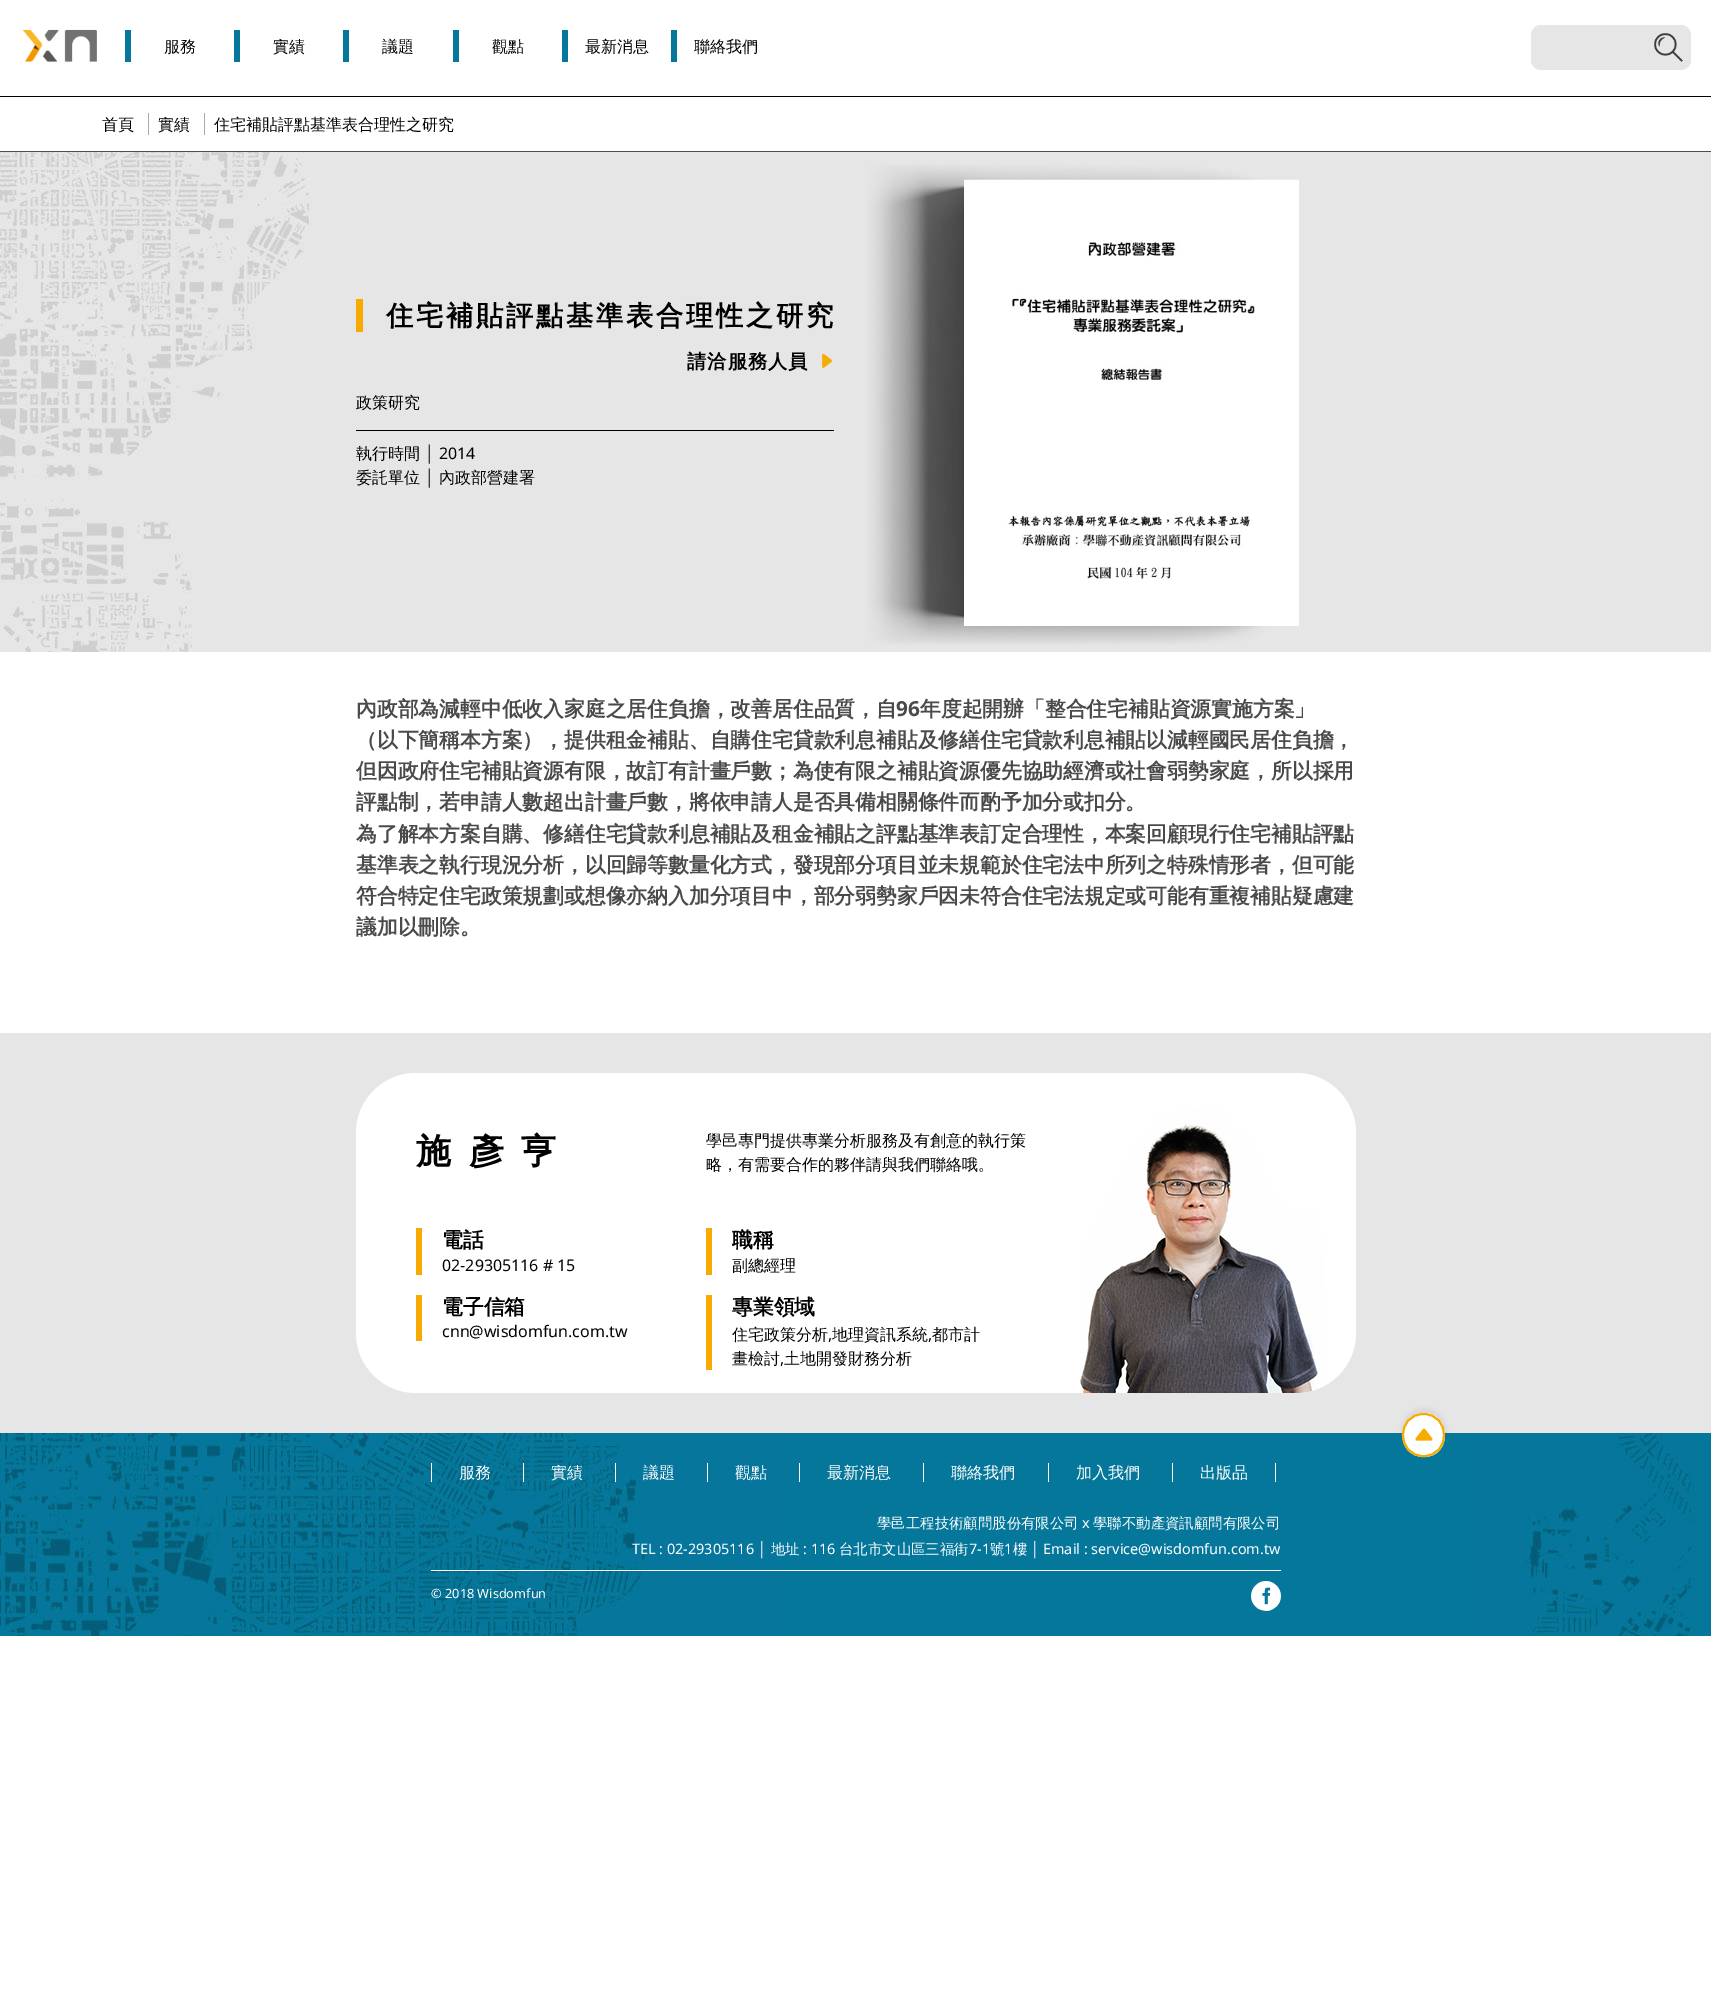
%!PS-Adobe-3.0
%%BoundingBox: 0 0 1711 1997
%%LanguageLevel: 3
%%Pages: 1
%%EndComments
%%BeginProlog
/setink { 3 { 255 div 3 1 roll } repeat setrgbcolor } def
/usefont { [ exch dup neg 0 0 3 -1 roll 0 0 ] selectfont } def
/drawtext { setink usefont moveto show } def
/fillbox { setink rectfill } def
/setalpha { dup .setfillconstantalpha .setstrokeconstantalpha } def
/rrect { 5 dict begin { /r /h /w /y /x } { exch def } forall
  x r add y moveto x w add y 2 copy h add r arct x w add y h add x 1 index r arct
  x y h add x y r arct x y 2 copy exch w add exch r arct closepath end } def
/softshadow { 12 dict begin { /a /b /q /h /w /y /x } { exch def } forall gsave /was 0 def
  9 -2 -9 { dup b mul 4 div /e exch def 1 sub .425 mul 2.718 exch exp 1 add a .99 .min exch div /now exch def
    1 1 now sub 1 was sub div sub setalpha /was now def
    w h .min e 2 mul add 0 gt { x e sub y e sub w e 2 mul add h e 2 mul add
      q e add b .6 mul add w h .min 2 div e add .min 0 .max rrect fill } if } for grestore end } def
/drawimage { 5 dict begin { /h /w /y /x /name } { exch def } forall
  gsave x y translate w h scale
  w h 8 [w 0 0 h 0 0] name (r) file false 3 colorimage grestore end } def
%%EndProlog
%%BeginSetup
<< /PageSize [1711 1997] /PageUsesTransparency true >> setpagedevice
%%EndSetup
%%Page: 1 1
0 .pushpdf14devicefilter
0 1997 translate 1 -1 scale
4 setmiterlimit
0 0 1711 1997 255 255 255 fillbox
0 96 1711 1 0 0 0 fillbox
(assets/img1.rgb) 22 29 75 33 drawimage
125 30 6 32 5 119 155 fillbox
(服務) 164 52 /WenQuanYiZenHei-Medium 16 0 0 0 drawtext
234 30 6 32 5 119 155 fillbox
(實績) 273 52 /WenQuanYiZenHei-Medium 16 0 0 0 drawtext
343 30 6 32 5 119 155 fillbox
(議題) 382 52 /WenQuanYiZenHei-Medium 16 0 0 0 drawtext
453 30 6 32 5 119 155 fillbox
(觀點) 492 52 /WenQuanYiZenHei-Medium 16 0 0 0 drawtext
562 30 6 32 5 119 155 fillbox
(最新消息) 585 52 /WenQuanYiZenHei-Medium 16 0 0 0 drawtext
671 30 6 32 5 119 155 fillbox
(聯絡我們) 694 52 /WenQuanYiZenHei-Medium 16 0 0 0 drawtext
230 230 230 setink
1531 25 160 45 10 rrect fill
(assets/img2.rgb) 1654 33 29 29 drawimage
0 151 1711 1 77 77 77 fillbox
(首頁) 102 130 /WenQuanYiZenHei-Medium 16 0 0 0 drawtext
148 113 1 22 170 170 170 fillbox
(實績) 158 130 /WenQuanYiZenHei-Medium 16 0 0 0 drawtext
204 113 1 22 170 170 170 fillbox
(住宅補貼評點基準表合理性之研究) 214 130 /WenQuanYiZenHei-Medium 16 0 0 0 drawtext
310 152 1401 500 230 230 230 fillbox
(assets/img3.rgb) 0 152 310 500 drawimage
356 299 7 33 247 171 0 fillbox
/WenQuanYiZenHei-Bold 27.25 usefont
0 0 0 setink
386 325 moveto 2.75 0 (住宅補貼評點基準表合理性之研究) ashow
/WenQuanYiZenHei-Bold 19.25 usefont
687 368 moveto 1 0 (請洽服務人員) ashow
(assets/img4.rgb) 822 353 10 15 drawimage
(政策研究) 356 408 /WenQuanYiZenHei-Medium 16 0 0 0 drawtext
356 430 478 1 0 0 0 fillbox
(執行時間) 356 459 /WenQuanYiZenHei-Medium 16 0 0 0 drawtext
(│) 425 459 /LiberationSans-Regular 16 0 0 0 drawtext
(2014) 439 459 /NotoSans-Regular 16 0 0 0 drawtext
(委託單位) 356 483 /WenQuanYiZenHei-Medium 16 0 0 0 drawtext
(│) 425 483 /LiberationSans-Regular 16 0 0 0 drawtext
(內政部營建署) 439 483 /WenQuanYiZenHei-Medium 16 0 0 0 drawtext
(assets/img5.rgb) 867 164 432 481 drawimage
(assets/img6.rgb) 964 180 335 446 drawimage
(內政部為減輕中低收入家庭之居住負擔，改善居住品質，自) 356 716 /WenQuanYiZenHei-Bold 20.8 74 74 74 drawtext
(96) 896 716 /NotoSans-Bold 20.8 74 74 74 drawtext
(年度起開辦「整合住宅補貼資源實施方案」) 920 716 /WenQuanYiZenHei-Bold 20.8 74 74 74 drawtext
(（以下簡稱本方案），提供租金補貼、自購住宅貸款利息補貼及修繕住宅貸款利息補貼以減輕國民居住負擔，) 356 747 /WenQuanYiZenHei-Bold 20.8 74 74 74 drawtext
(但因政府住宅補貼資源有限，故訂有計畫戶數；為使有限之補貼資源優先協助經濟或社會弱勢家庭，所以採用) 356 778 /WenQuanYiZenHei-Bold 20.8 74 74 74 drawtext
(評點制，若申請人數超出計畫戶數，將依申請人是否具備相關條件而酌予加分或扣分。) 356 809 /WenQuanYiZenHei-Bold 20.8 74 74 74 drawtext
(為了解本方案自購、修繕住宅貸款利息補貼及租金補貼之評點基準表訂定合理性，本案回顧現行住宅補貼評點) 356 841 /WenQuanYiZenHei-Bold 20.8 74 74 74 drawtext
(基準表之執行現況分析，以回歸等數量化方式，發現部分項目並未規範於住宅法中所列之特殊情形者，但可能) 356 872 /WenQuanYiZenHei-Bold 20.8 74 74 74 drawtext
(符合特定住宅政策規劃或想像亦納入加分項目中，部分弱勢家戶因未符合住宅法規定或可能有重複補貼疑慮建) 356 903 /WenQuanYiZenHei-Bold 20.8 74 74 74 drawtext
(議加以刪除。) 356 934 /WenQuanYiZenHei-Bold 20.8 74 74 74 drawtext
0 1033 1711 400 230 230 230 fillbox
255 255 255 setink
356 1073 1000 320 60 rrect fill
/WenQuanYiZenHei-Bold 35 usefont
0 0 0 setink
416 1163 moveto 17.5 0 (施彥亨) ashow
(學邑專門提供專業分析服務及有創意的執行策) 706 1146 /WenQuanYiZenHei-Medium 16 0 0 0 drawtext
(略，有需要合作的夥伴請與我們聯絡哦。) 706 1170 /WenQuanYiZenHei-Medium 16 0 0 0 drawtext
(assets/img7.rgb) 1080 1093 276 300 drawimage
416 1228 6 47 247 171 0 fillbox
(電話) 442 1247 /WenQuanYiZenHei-Bold 20.8 0 0 0 drawtext
(02-29305116 # 15) 442 1271 /NotoSans-Regular 16 0 0 0 drawtext
706 1228 6 47 247 171 0 fillbox
(職稱) 732 1247 /WenQuanYiZenHei-Bold 20.8 0 0 0 drawtext
(副總經理) 732 1271 /WenQuanYiZenHei-Medium 16 0 0 0 drawtext
416 1295 6 46 247 171 0 fillbox
(電子信箱) 442 1314 /WenQuanYiZenHei-Bold 20.8 0 0 0 drawtext
(cnn@wisdomfun.com.tw) 442 1337 /NotoSans-Regular 16 0 0 0 drawtext
706 1295 6 75 247 171 0 fillbox
(專業領域) 732 1314 /WenQuanYiZenHei-Bold 20.8 0 0 0 drawtext
(住宅政策分析) 732 1340 /WenQuanYiZenHei-Medium 16 0 0 0 drawtext
(,) 828 1340 /NotoSans-Regular 16 0 0 0 drawtext
(地理資訊系統) 832 1340 /WenQuanYiZenHei-Medium 16 0 0 0 drawtext
(,) 928 1340 /NotoSans-Regular 16 0 0 0 drawtext
(都市計) 932 1340 /WenQuanYiZenHei-Medium 16 0 0 0 drawtext
(畫檢討) 732 1364 /WenQuanYiZenHei-Medium 16 0 0 0 drawtext
(,) 780 1364 /NotoSans-Regular 16 0 0 0 drawtext
(土地開發財務分析) 784 1364 /WenQuanYiZenHei-Medium 16 0 0 0 drawtext
780 1433 931 203 5 119 155 fillbox
(assets/img8.rgb) 0 1433 1695 203 drawimage
0 0 0 setink
1402 1408 44 44 22 2.5 0.05 softshadow
255 255 255 setink
1424 1457 moveto 1395 1457 1395 1413 1424 1413 curveto 1452 1413 1452 1457 1424 1457 curveto closepath fill
(assets/img9.rgb) 1415 1428 18 13 drawimage
247 171 0 setink
2 setlinewidth
1423.5 1456 moveto 1396 1456 1396 1414 1423.5 1414 curveto 1451 1414 1451 1456 1423.5 1456 curveto closepath stroke
431 1463 1 19 255 255 255 fillbox
(服務) 459 1478 /WenQuanYiZenHei-Medium 16 255 255 255 drawtext
523 1463 1 19 255 255 255 fillbox
(實績) 551 1478 /WenQuanYiZenHei-Medium 16 255 255 255 drawtext
615 1463 1 19 255 255 255 fillbox
(議題) 643 1478 /WenQuanYiZenHei-Medium 16 255 255 255 drawtext
707 1463 1 19 255 255 255 fillbox
(觀點) 735 1478 /WenQuanYiZenHei-Medium 16 255 255 255 drawtext
799 1463 1 19 255 255 255 fillbox
(最新消息) 827 1478 /WenQuanYiZenHei-Medium 16 255 255 255 drawtext
923 1463 1 19 255 255 255 fillbox
(聯絡我們) 951 1478 /WenQuanYiZenHei-Medium 16 255 255 255 drawtext
1048 1463 1 19 255 255 255 fillbox
(加入我們) 1076 1478 /WenQuanYiZenHei-Medium 16 255 255 255 drawtext
1172 1463 1 19 255 255 255 fillbox
(出版品) 1200 1478 /WenQuanYiZenHei-Medium 16 255 255 255 drawtext
1275 1463 1 19 255 255 255 fillbox
(學邑工程技術顧問股份有限公司) 877 1528 /WenQuanYiZenHei-Medium 14.4 255 255 255 drawtext
(x) 1082 1528 /NotoSans-Regular 14.4 255 255 255 drawtext
(學聯不動產資訊顧問有限公司) 1093 1528 /WenQuanYiZenHei-Medium 14.4 255 255 255 drawtext
431 1570 850 1 255 255 255 fillbox
(TEL : 02-29305116) 632 1554 /NotoSans-Regular 14.4 255 255 255 drawtext
(│) 758 1554 /LiberationSans-Regular 14.4 255 255 255 drawtext
(地址) 771 1554 /WenQuanYiZenHei-Medium 14.4 255 255 255 drawtext
(: 116) 803 1554 /NotoSans-Regular 14.4 255 255 255 drawtext
(台北市文山區三福街) 839 1554 /WenQuanYiZenHei-Medium 14.4 255 255 255 drawtext
(7-1) 969 1554 /NotoSans-Regular 14.4 255 255 255 drawtext
(號) 990 1554 /WenQuanYiZenHei-Medium 14.4 255 255 255 drawtext
(1) 1004 1554 /NotoSans-Regular 14.4 255 255 255 drawtext
(樓) 1013 1554 /WenQuanYiZenHei-Medium 14.4 255 255 255 drawtext
(│) 1031 1554 /LiberationSans-Regular 14.4 255 255 255 drawtext
(Email : service@wisdomfun.com.tw) 1043 1554 /NotoSans-Regular 14.4 255 255 255 drawtext
(© 2018 Wisdomfun) 431 1598 /NotoSans-Regular 12.75 255 255 255 drawtext
(assets/img10.rgb) 1251 1581 30 30 drawimage
.poppdf14devicefilter showpage
%%EOF
